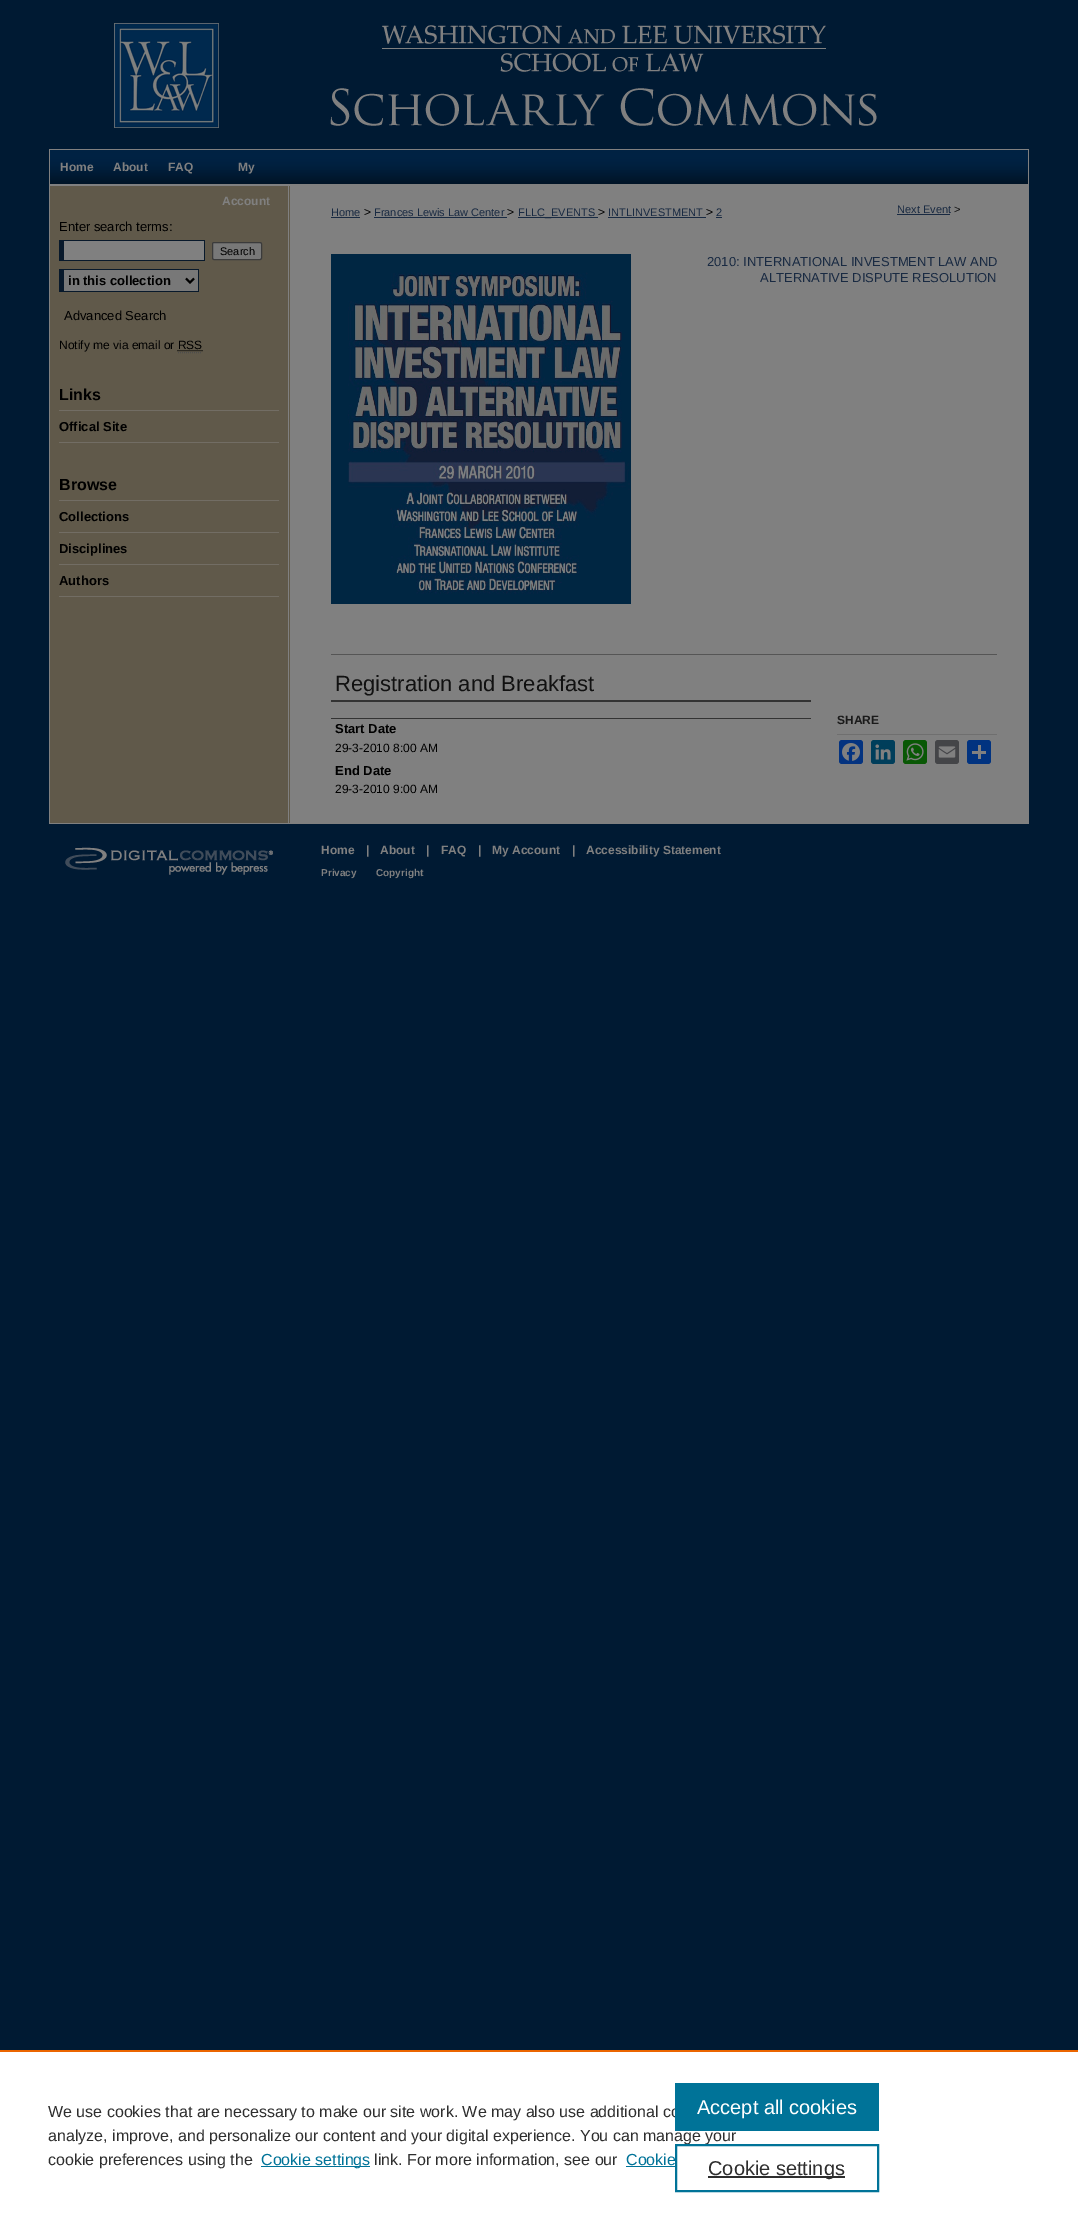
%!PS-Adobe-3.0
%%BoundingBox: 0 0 1078 2220
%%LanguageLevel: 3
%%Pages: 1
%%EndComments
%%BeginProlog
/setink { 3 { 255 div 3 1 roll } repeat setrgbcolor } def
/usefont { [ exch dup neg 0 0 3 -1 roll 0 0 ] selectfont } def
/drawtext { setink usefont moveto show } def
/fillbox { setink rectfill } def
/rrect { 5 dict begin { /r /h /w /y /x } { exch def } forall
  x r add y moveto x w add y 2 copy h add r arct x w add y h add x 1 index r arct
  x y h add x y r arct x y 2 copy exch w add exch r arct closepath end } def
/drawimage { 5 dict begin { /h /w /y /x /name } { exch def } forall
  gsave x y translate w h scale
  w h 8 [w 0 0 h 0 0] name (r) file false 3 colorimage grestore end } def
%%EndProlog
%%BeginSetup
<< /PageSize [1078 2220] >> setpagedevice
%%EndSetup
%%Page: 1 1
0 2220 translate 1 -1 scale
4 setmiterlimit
0 0 1078 2220 0 26 51 fillbox
(assets/img1.rgb) 114 23 105 105 drawimage
(assets/img2.rgb) 330 25 547 101 drawimage
(assets/img3.rgb) 50 150 978 34 drawimage
49 149 980 1 128 128 128 fillbox
1028 149 1 37 128 128 128 fillbox
49 184 980 2 128 128 128 fillbox
49 149 1 37 128 128 128 fillbox
(Home) 60 171 /LiberationSans-Bold 12 128 128 128 drawtext
(About) 113 171 /LiberationSans-Bold 12 128 128 128 drawtext
(FAQ) 168 171 /LiberationSans-Bold 12 128 128 128 drawtext
(My) 238 171 /LiberationSans-Bold 12 128 128 128 drawtext
(assets/img4.rgb) 49 186 980 637 drawimage
(Account) 222 205 /LiberationSans-Bold 12 128 128 128 drawtext
(Enter search terms:) 59 231 /LiberationSans-Regular 13 0 0 0 drawtext
64 241 140 19 128 128 128 fillbox
59 240 146 1 8 25 43 fillbox
204 240 1 21 8 25 43 fillbox
59 260 146 1 8 25 43 fillbox
59 240 5 21 8 25 43 fillbox
120 120 120 setink
212.5 242.5 49 17 1.5 rrect gsave fill grestore
59 59 59 setink
stroke
(Search) 220 255 /LiberationSans-Regular 11 0 0 0 drawtext
64 270 134 21 120 120 120 fillbox
59 269 140 1 8 25 43 fillbox
198 269 1 23 8 25 43 fillbox
59 291 140 1 8 25 43 fillbox
59 269 5 23 8 25 43 fillbox
0 0 0 setink
2 setlinewidth
186 278.5 moveto 190 282.5 lineto 194 278.5 lineto stroke
(in this collection) 68 285 /LiberationSans-Bold 13 0 0 0 drawtext
(Advanced Search) 64 320 /LiberationSans-Regular 13 0 0 0 drawtext
(Notify me via email or RSS) 59 349 /LiberationSans-Regular 12 0 0 0 drawtext
1 setlinewidth
[1 1] 0 setdash
177.5 350.5 moveto 202.5 350.5 lineto stroke
77 77 77 setink
178 352.5 moveto 202 352.5 lineto stroke
59 410 220 1 114 109 100 fillbox
(Links) 59 400 /LiberationSans-Bold 16 0 0 0 drawtext
59 442 220 1 114 109 100 fillbox
(Offical Site) 59 431 /LiberationSans-Bold 13 0 0 0 drawtext
59 500 220 1 114 109 100 fillbox
(Browse) 59 490 /LiberationSans-Bold 16 0 0 0 drawtext
59 532 220 1 114 109 100 fillbox
(Collections) 59 521 /LiberationSans-Bold 13 0 0 0 drawtext
59 564 220 1 114 109 100 fillbox
(Disciplines) 59 553 /LiberationSans-Bold 13 0 0 0 drawtext
59 596 220 1 114 109 100 fillbox
(Authors) 59 585 /LiberationSans-Bold 13 0 0 0 drawtext
(Home) 331 216 /LiberationSans-Regular 11 25 42 66 drawtext
331 217 29 1 25 42 66 fillbox
(>) 364 216 /LiberationSans-Regular 12 0 0 0 drawtext
(Frances Lewis Law Center) 374 216 /LiberationSans-Regular 11 25 42 66 drawtext
374 217 133 1 25 42 66 fillbox
(>) 507 216 /LiberationSans-Regular 12 0 0 0 drawtext
518 217 80 1 25 42 66 fillbox
(FLLC_EVENTS) 518 216 /LiberationSans-Regular 11 25 42 66 drawtext
(>) 598 216 /LiberationSans-Regular 12 0 0 0 drawtext
(INTLINVESTMENT) 608 216 /LiberationSans-Regular 11 25 42 66 drawtext
608 217 98 1 25 42 66 fillbox
(>) 706 216 /LiberationSans-Regular 12 0 0 0 drawtext
(2) 716 216 /LiberationSans-Regular 11 25 42 66 drawtext
716 217 6 1 25 42 66 fillbox
(Next Event) 897 213 /LiberationSans-Regular 11 25 42 66 drawtext
897 214 53 1 25 42 66 fillbox
(>) 954 213 /LiberationSans-Regular 11 17 17 17 drawtext
(assets/img5.rgb) 331 254 300 350 drawimage
(2010: INTERNATIONAL INVESTMENT LAW AND) 707 266 /LiberationSans-Regular 13 25 42 66 drawtext
(ALTERNATIVE DISPUTE RESOLUTION) 760 282 /LiberationSans-Regular 13 25 42 66 drawtext
331 654 666 1 85 85 85 fillbox
(Registration and Breakfast) 335 691 /LiberationSans-Regular 22 17 17 17 drawtext
331 700 480 2 51 51 51 fillbox
331 718 480 1 51 51 51 fillbox
(Start Date) 335 733 /LiberationSans-Bold 13 0 0 0 drawtext
(29-3-2010 8:00 AM) 335 752 /LiberationSans-Regular 12 0 0 0 drawtext
(End Date) 335 775 /LiberationSans-Bold 13 0 0 0 drawtext
(29-3-2010 9:00 AM) 335 793 /LiberationSans-Regular 12 0 0 0 drawtext
837 734 160 1 111 111 111 fillbox
(SHARE) 837 724 /LiberationSans-Bold 12 26 26 26 drawtext
4 51 128 setink
839 740 24 24 3 rrect fill
(assets/img6.rgb) 842 743 18 18 drawimage
0 62 91 setink
871 740 24 24 3 rrect fill
(assets/img7.rgb) 875 744 16 16 drawimage
9 88 5 setink
903 740 24 24 3 rrect fill
(assets/img8.rgb) 906 743 18 18 drawimage
68 69 72 setink
935 740 24 24 3 rrect fill
(assets/img9.rgb) 938 746 18 12 drawimage
1 51 128 setink
967 740 24 24 3 rrect fill
978 745 3 14 128 128 128 fillbox
972 751 14 3 128 128 128 fillbox
49 823 980 1 128 128 128 fillbox
(assets/img10.rgb) 49 824 240 75 drawimage
(Home) 321 854 /LiberationSans-Bold 12 128 128 128 drawtext
(|) 366 854 /LiberationSans-Bold 12 128 128 128 drawtext
(About) 380 854 /LiberationSans-Bold 12 128 128 128 drawtext
(|) 426 854 /LiberationSans-Bold 12 128 128 128 drawtext
(FAQ) 441 854 /LiberationSans-Bold 12 128 128 128 drawtext
(|) 478 854 /LiberationSans-Bold 12 128 128 128 drawtext
(My Account) 492 854 /LiberationSans-Bold 12 128 128 128 drawtext
(|) 572 854 /LiberationSans-Bold 12 128 128 128 drawtext
(Accessibility Statement) 586 854 /LiberationSans-Bold 12 128 128 128 drawtext
(Privacy) 321 876 /LiberationSans-Bold 10 128 128 128 drawtext
(Copyright) 376 876 /LiberationSans-Bold 10 128 128 128 drawtext
0 2052 1078 168 255 255 255 fillbox
0 2050 1078 2 235 101 0 fillbox
(We use cookies that are necessary to make our site work. We may also use additional co) 48 2117 /LiberationSans-Regular 16 46 46 46 drawtext
(analyze, improve, and personalize our content and your digital experience. You can manage your) 48 2141 /LiberationSans-Regular 16 46 46 46 drawtext
(cookie preferences using the) 48 2165 /LiberationSans-Regular 16 46 46 46 drawtext
261 2166 109 1 0 115 152 fillbox
(Cookie settings) 261 2165 /LiberationSans-Regular 16 0 115 152 drawtext
(link. For more information, see our) 374 2165 /LiberationSans-Regular 16 46 46 46 drawtext
(Cookie) 626 2165 /LiberationSans-Regular 16 0 115 152 drawtext
626 2166 49 1 0 115 152 fillbox
675 2083 204 48 0 115 152 fillbox
(Accept all cookies) 697 2114 /LiberationSans-Regular 20 255 255 255 drawtext
0 115 152 setink
2 setlinewidth
[] 0 setdash
676 2145 202 46 rectstroke
708 2176 137 2 46 46 46 fillbox
(Cookie settings) 708 2175 /LiberationSans-Regular 20 46 46 46 drawtext
showpage
%%EOF
